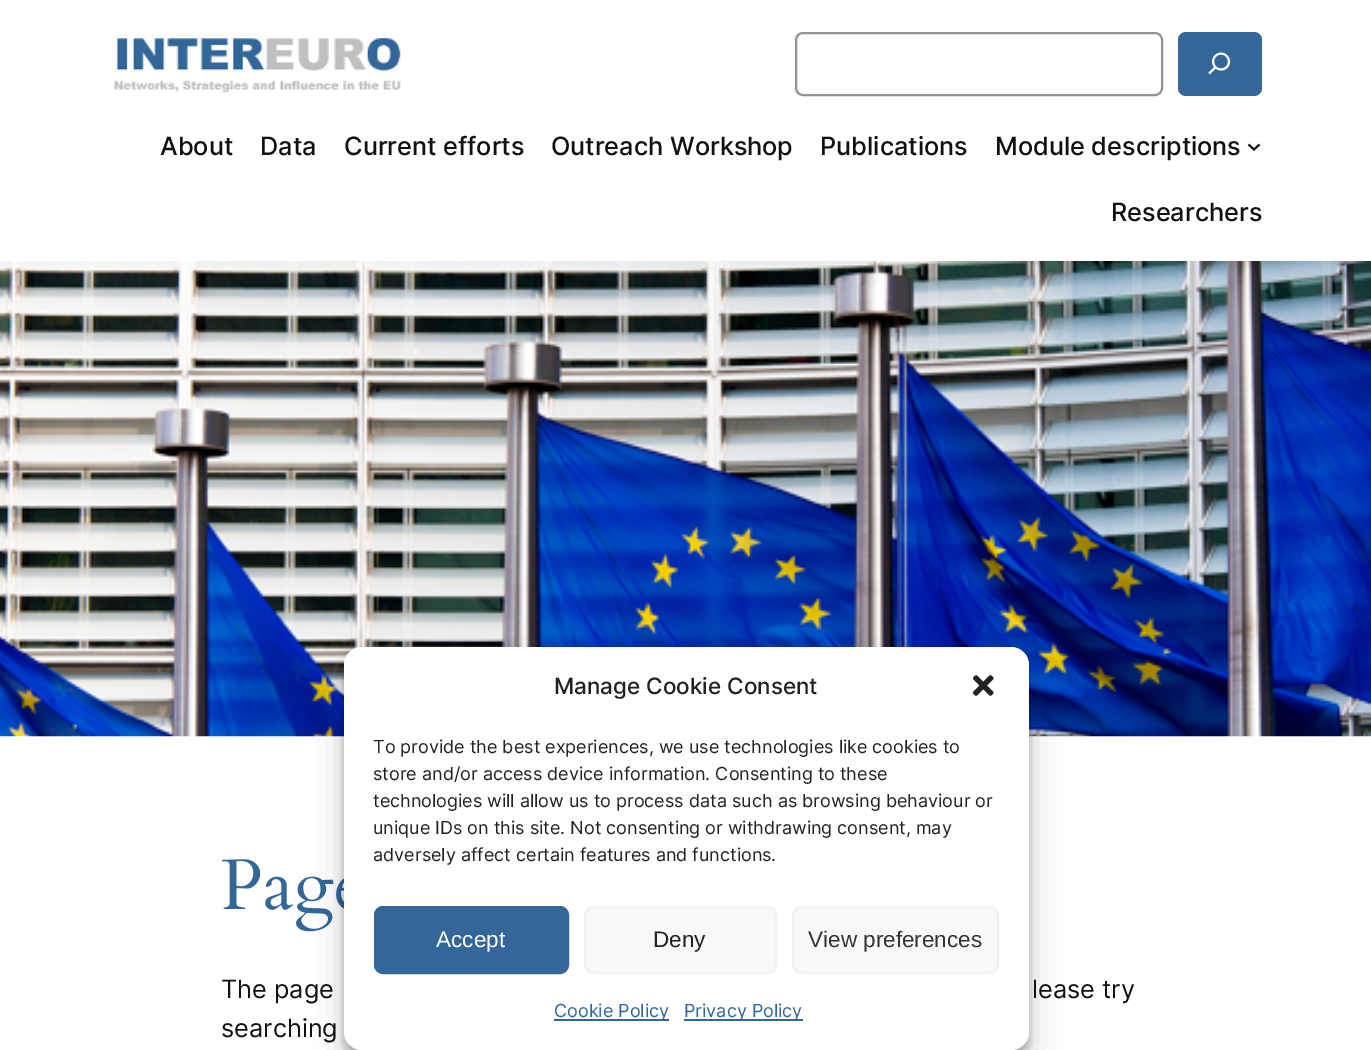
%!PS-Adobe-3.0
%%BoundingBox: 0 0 1371 1050
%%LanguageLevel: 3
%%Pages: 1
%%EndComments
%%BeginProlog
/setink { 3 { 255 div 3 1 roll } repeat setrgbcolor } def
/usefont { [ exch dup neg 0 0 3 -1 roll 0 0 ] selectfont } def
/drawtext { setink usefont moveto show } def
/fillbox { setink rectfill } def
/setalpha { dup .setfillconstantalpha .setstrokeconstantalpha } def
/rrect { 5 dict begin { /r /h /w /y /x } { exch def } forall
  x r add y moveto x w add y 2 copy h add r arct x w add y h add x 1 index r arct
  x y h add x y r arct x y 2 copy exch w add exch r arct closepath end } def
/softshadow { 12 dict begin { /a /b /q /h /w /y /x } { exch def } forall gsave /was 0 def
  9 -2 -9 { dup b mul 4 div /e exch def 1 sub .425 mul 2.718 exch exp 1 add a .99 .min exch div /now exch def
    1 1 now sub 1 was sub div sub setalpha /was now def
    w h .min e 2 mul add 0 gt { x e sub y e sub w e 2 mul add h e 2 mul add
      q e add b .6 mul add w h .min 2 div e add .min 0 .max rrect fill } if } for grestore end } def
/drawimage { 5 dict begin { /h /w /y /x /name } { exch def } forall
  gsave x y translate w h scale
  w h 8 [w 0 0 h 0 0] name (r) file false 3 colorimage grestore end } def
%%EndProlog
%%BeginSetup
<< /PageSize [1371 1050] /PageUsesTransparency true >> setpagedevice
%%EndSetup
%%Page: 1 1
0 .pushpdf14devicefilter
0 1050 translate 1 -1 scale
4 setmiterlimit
0 0 1371 1050 255 255 255 fillbox
(assets/img1.rgb) 113 38 288 55 drawimage
148 148 148 setink
2 setlinewidth
796 33 366 62 7 rrect stroke
51 103 153 setink
1178 32 84 64 8 rrect fill
(assets/img2.rgb) 1208 52 23 23 drawimage
(About) 160 155 /Inter-Medium 25.25 17 17 17 drawtext
(Data) 260 155 /Inter-Medium 25.25 17 17 17 drawtext
(Current efforts) 344 155 /Inter-Medium 25.25 17 17 17 drawtext
(Outreach Workshop) 551 155 /Inter-Medium 25.25 17 17 17 drawtext
(Publications) 820 155 /Inter-Medium 25.25 17 17 17 drawtext
(Module descriptions) 995 155 /Inter-Medium 25.25 17 17 17 drawtext
1.9 setlinewidth
1248.5 144.5 moveto 1254 149.5 lineto 1259.5 144.5 lineto stroke
(Researchers) 1111 221 /Inter-Medium 25.25 17 17 17 drawtext
(assets/img3.rgb) 0 261 1371 476 drawimage
(assets/img4.rgb) 221 859 123 73 drawimage
(The page) 221 998 /Inter-Regular 25.25 17 17 17 drawtext
(lease try) 1032 998 /Inter-Regular 25.25 17 17 17 drawtext
(searching) 221 1037 /Inter-Regular 25.25 17 17 17 drawtext
0 0 0 setink
344 656 685 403 18 4.5 0.23 softshadow
344 662 685 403 18 15 0.19 softshadow
255 255 255 setink
344 647 685 403 18 rrect fill
(Manage Cookie Consent) 554 694 /Inter-Medium 22.5 34 34 34 drawtext
(assets/img5.rgb) 973 675 21 21 drawimage
(To provide the best experiences, we use technologies like cookies to) 373 753 /Inter-Regular 18 34 34 34 drawtext
(store and/or access device information. Consenting to these) 373 780 /Inter-Regular 18 34 34 34 drawtext
(technologies will allow us to process data such as browsing behaviour or) 373 807 /Inter-Regular 18 34 34 34 drawtext
(unique IDs on this site. Not consenting or withdrawing consent, may) 373 834 /Inter-Regular 18 34 34 34 drawtext
gsave
374 734 625 142 rectclip
(adversely affect certain features and functions.) 373 861 /Inter-Regular 18 34 34 34 drawtext
grestore
51 103 153 setink
375 907 193 66 8 rrect gsave fill grestore
2 setlinewidth
stroke
(Accept) 436 947 /LiberationSans-Regular 22.5 255 255 255 drawtext
249 249 249 setink
585 907 191 66 8 rrect gsave fill grestore
242 242 242 setink
stroke
(Deny) 653 947 /LiberationSans-Regular 22.5 34 34 34 drawtext
249 249 249 setink
793 907 205 66 8 rrect gsave fill grestore
242 242 242 setink
stroke
(View preferences) 808 947 /LiberationSans-Regular 22.5 51 51 51 drawtext
554 1019 115 2 51 103 153 fillbox
(Cookie Policy) 554 1017 /Inter-Regular 18 51 103 153 drawtext
684 1019 119 2 51 103 153 fillbox
(Privacy Policy) 684 1017 /Inter-Regular 18 51 103 153 drawtext
.poppdf14devicefilter showpage
%%EOF
